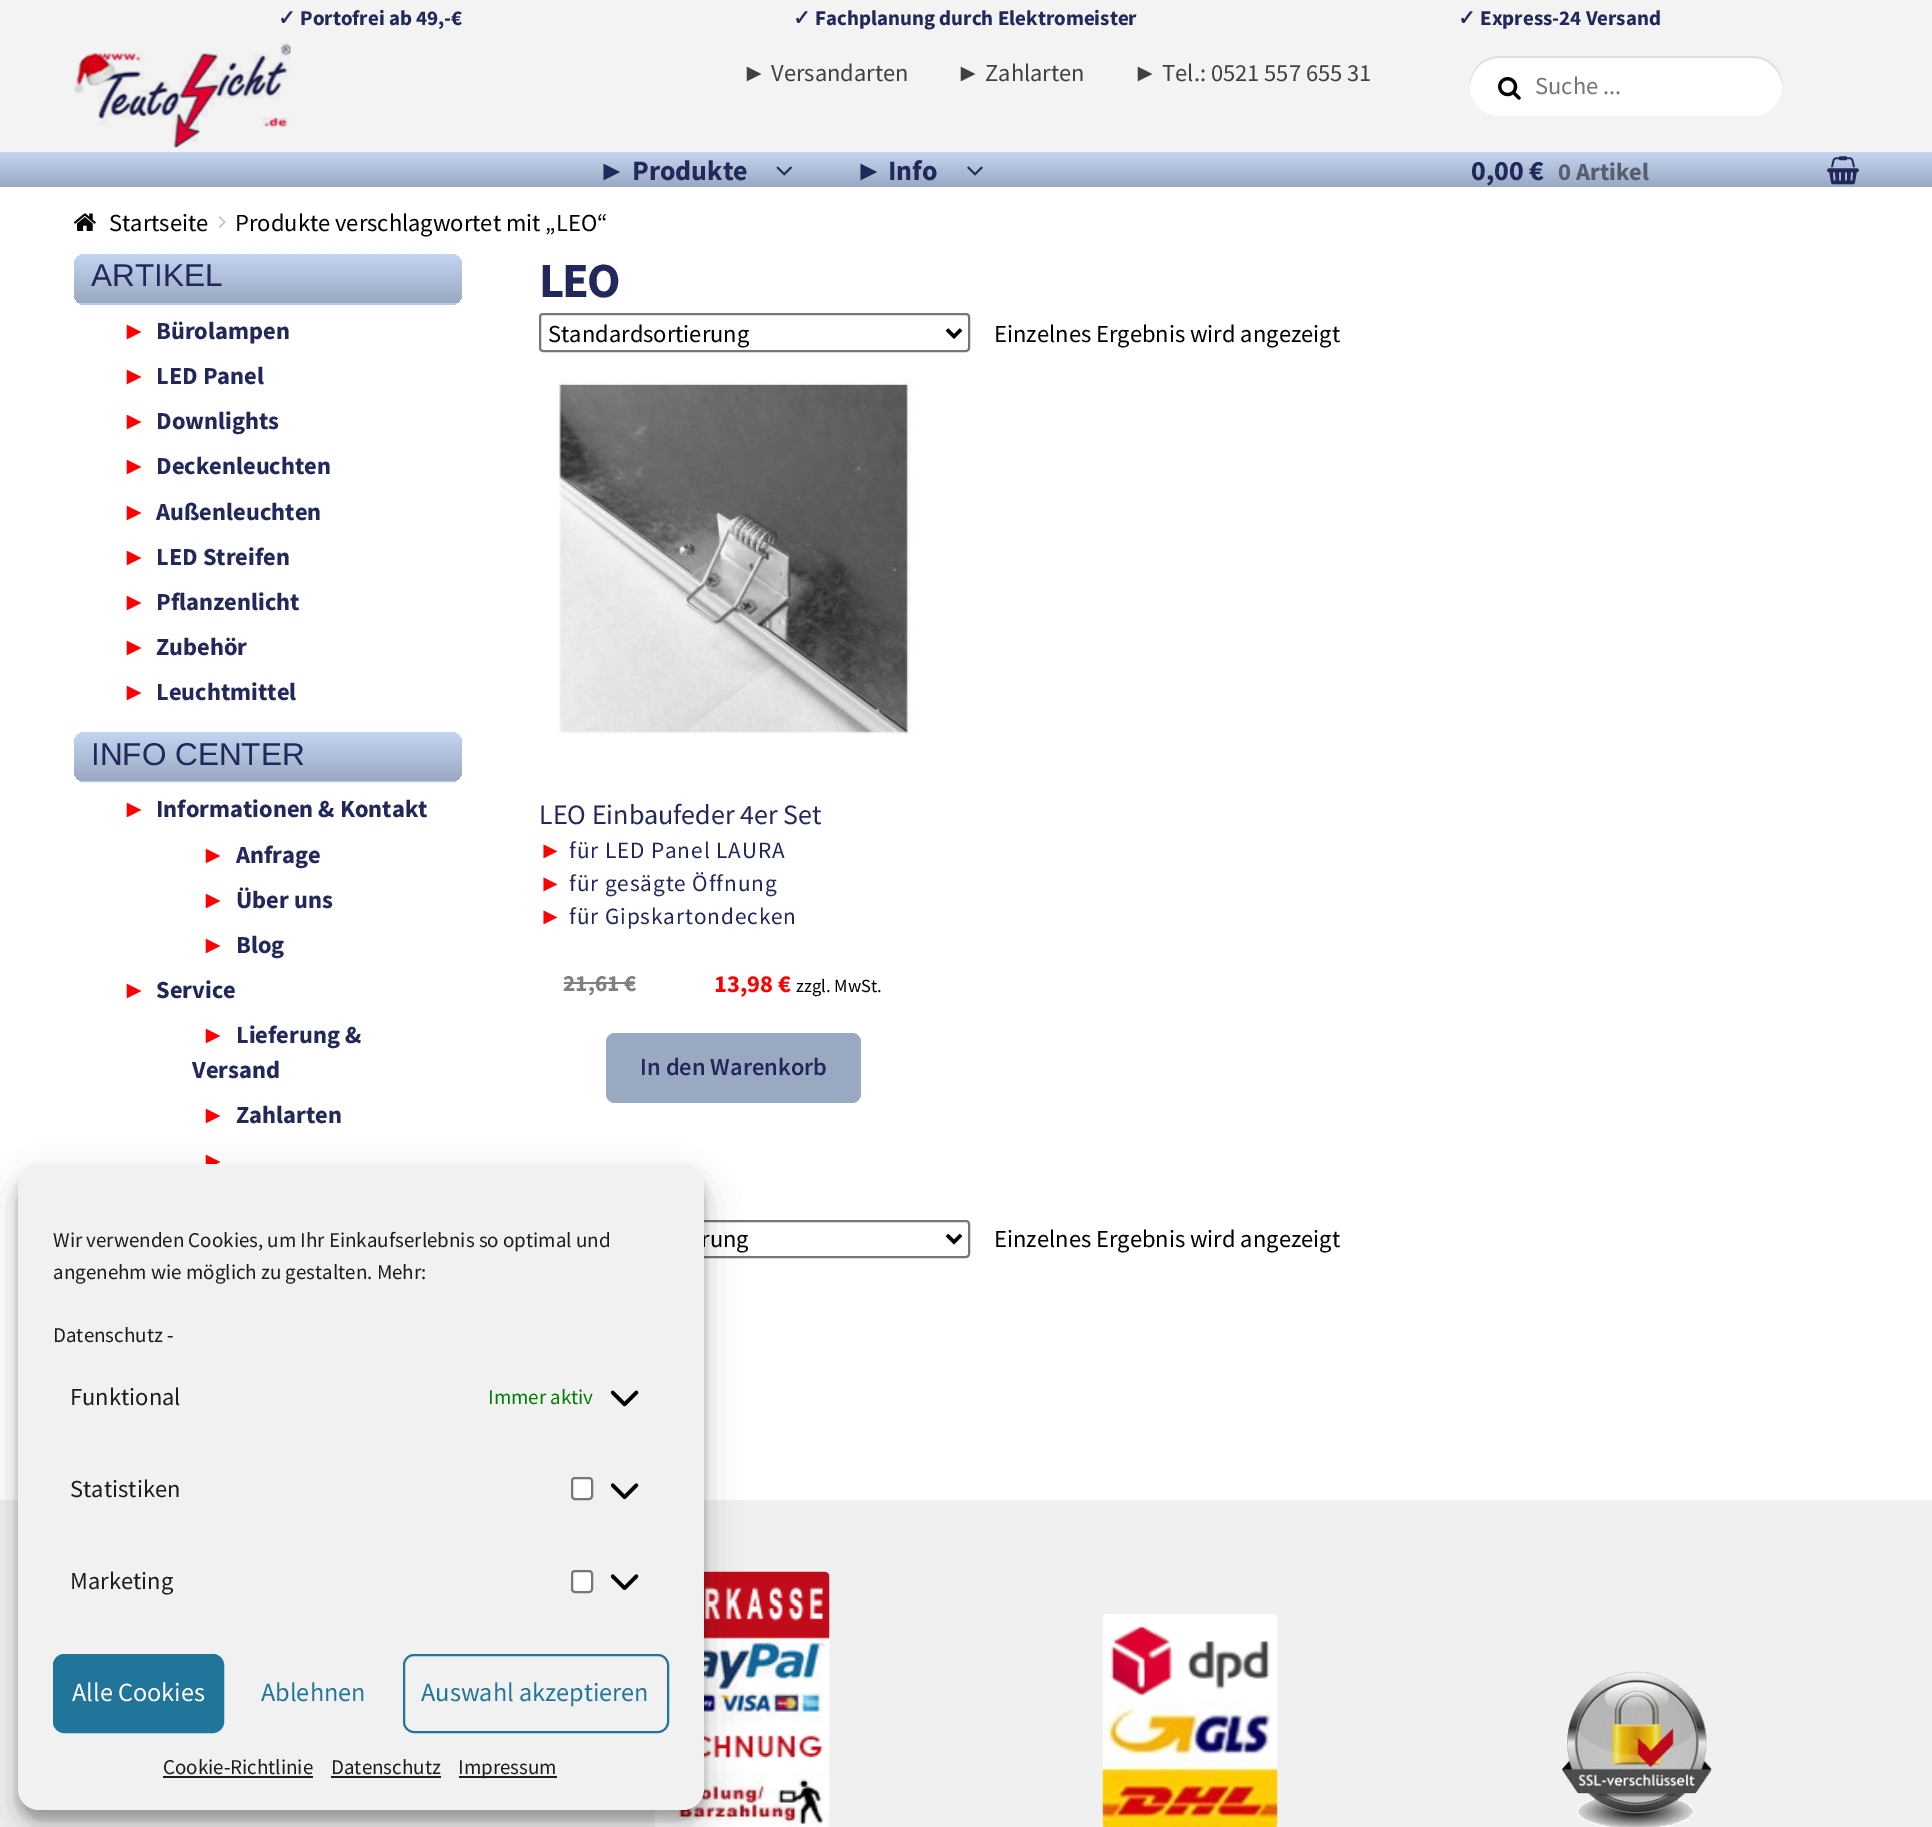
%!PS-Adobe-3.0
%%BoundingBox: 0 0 1932 1827
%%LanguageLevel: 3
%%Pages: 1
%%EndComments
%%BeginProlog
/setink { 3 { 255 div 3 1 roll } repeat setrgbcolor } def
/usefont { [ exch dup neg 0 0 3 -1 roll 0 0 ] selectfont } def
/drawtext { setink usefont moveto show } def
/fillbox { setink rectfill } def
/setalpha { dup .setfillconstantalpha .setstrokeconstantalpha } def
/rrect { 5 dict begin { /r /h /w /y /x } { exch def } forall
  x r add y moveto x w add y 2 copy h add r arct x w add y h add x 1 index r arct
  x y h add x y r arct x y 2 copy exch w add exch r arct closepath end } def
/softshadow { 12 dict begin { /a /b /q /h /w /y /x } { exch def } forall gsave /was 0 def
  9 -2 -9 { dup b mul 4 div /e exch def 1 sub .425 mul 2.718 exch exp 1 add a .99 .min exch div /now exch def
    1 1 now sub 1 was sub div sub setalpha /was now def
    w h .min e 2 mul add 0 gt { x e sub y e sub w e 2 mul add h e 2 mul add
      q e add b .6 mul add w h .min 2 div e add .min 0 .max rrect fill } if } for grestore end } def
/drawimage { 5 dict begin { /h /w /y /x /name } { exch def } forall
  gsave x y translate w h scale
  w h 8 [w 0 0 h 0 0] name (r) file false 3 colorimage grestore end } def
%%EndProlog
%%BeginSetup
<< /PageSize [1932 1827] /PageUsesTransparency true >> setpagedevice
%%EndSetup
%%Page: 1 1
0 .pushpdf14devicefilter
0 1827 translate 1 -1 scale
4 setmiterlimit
0 0 1932 1827 255 255 255 fillbox
79 781 378 2 242 242 242 fillbox
79 303 378 2 242 242 242 fillbox
0 0 1932 152 243 243 243 fillbox
(✓) 278 25 /DejaVuSans-Bold 21 34 40 90 drawtext
(Portofrei ab 49,-€) 300 25 /SourceSansPro-Bold 21 34 40 90 drawtext
(✓) 793 25 /DejaVuSans-Bold 21 34 40 90 drawtext
(Fachplanung durch Elektromeister) 815 25 /SourceSansPro-Bold 21 34 40 90 drawtext
(✓) 1458 25 /DejaVuSans-Bold 21 34 40 90 drawtext
(Express-24 Versand) 1480 25 /SourceSansPro-Bold 21 34 40 90 drawtext
(assets/img1.rgb) 73 43 218 105 drawimage
(►) 742 81 /LiberationSans-Regular 24.5 64 64 64 drawtext
(Versandarten) 771 81 /SourceSansPro-Regular 24.5 64 64 64 drawtext
(►) 956 81 /LiberationSans-Regular 24.5 64 64 64 drawtext
(Zahlarten) 985 81 /SourceSansPro-Regular 24.5 64 64 64 drawtext
(►) 1133 81 /LiberationSans-Regular 24.5 64 64 64 drawtext
(Tel.: 0521 557 655 31) 1162 81 /SourceSansPro-Regular 24.5 64 64 64 drawtext
255 255 255 setink
1470 56 312 60 30 rrect fill
0.12 setalpha
0 0 0 setink
1500 58 moveto 1752 58 lineto 1768 58 1781 70 1782 87 curveto 1782 86 lineto 1782 69 1769 56 1752 56 curveto 1500 56 lineto 1483 56 1470 69 1470 86 curveto 1470 87 lineto 1471 70 1483 58 1500 58 curveto closepath fill
1 setalpha
(assets/img2.rgb) 1498 77 23 23 drawimage
(Suche ...) 1535 94 /SourceSansPro-Regular 24.5 117 117 117 drawtext
gsave 0 152 moveto 1932 152 lineto 1932 187 lineto 0 187 lineto closepath clip newpath
<< /ShadingType 2 /ColorSpace /DeviceRGB /Coords [966 152 966 187] /Extend [true true] /Function << /FunctionType 2 /Domain [0 1] /C0 [0.765 0.835 0.945] /C1 [0.6 0.663 0.761] /N 1 >> >> shfill grestore
(►) 598 180 /LiberationSans-Bold 28 34 40 90 drawtext
(Produkte) 632 180 /SourceSansPro-Bold 28 34 40 90 drawtext
(assets/img3.rgb) 776 166 16 10 drawimage
(►) 855 180 /LiberationSans-Bold 28 34 40 90 drawtext
(Info) 888 180 /SourceSansPro-Bold 28 34 40 90 drawtext
(assets/img4.rgb) 967 166 16 10 drawimage
(0,00 €) 1471 180 /SourceSansPro-Bold 28 34 40 90 drawtext
(0 Artikel) 1558 180 /SourceSansPro-Bold 24.5 85 94 107 drawtext
(assets/img5.rgb) 1827 156 32 29 drawimage
(assets/img6.rgb) 73 213 23 18 drawimage
(Startseite) 109 231 /SourceSansPro-Regular 24.5 0 0 0 drawtext
(assets/img7.rgb) 218 216 8 12 drawimage
(Produkte verschlagwortet mit „LEO“) 235 231 /SourceSansPro-Regular 24.5 0 0 0 drawtext
gsave
74 254 388 51 11 rrect clip newpath
gsave 85 254 moveto 451 254 lineto 457 254 462 259 462 265 curveto 462 303 lineto 74 303 lineto 74 265 lineto 74 259 79 254 85 254 curveto closepath clip newpath
<< /ShadingType 2 /ColorSpace /DeviceRGB /Coords [268 254 268 303] /Extend [true true] /Function << /FunctionType 2 /Domain [0 1] /C0 [0.765 0.835 0.945] /C1 [0.6 0.663 0.761] /N 1 >> >> shfill grestore
gsave 74 303 moveto 462 303 lineto 462 305 lineto 74 305 lineto closepath clip newpath
<< /ShadingType 2 /ColorSpace /DeviceRGB /Coords [268 303 268 352] /Extend [true true] /Function << /FunctionType 2 /Domain [0 1] /C0 [0.725 0.792 0.898] /C1 [0.569 0.631 0.722] /N 1 >> >> shfill grestore
grestore
(ARTIKEL) 91 286 /LiberationSans-Regular 31.5 34 40 90 drawtext
(►) 122 339 /LiberationSans-Bold 24.5 255 0 0 drawtext
(Bürolampen) 156 339 /SourceSansPro-Bold 24.5 34 40 90 drawtext
(►) 122 384 /LiberationSans-Bold 24.5 255 0 0 drawtext
(LED Panel) 156 384 /SourceSansPro-Bold 24.5 34 40 90 drawtext
(►) 122 429 /LiberationSans-Bold 24.5 255 0 0 drawtext
(Downlights) 156 429 /SourceSansPro-Bold 24.5 34 40 90 drawtext
(►) 122 474 /LiberationSans-Bold 24.5 255 0 0 drawtext
(Deckenleuchten) 156 474 /SourceSansPro-Bold 24.5 34 40 90 drawtext
(►) 122 520 /LiberationSans-Bold 24.5 255 0 0 drawtext
(Außenleuchten) 156 520 /SourceSansPro-Bold 24.5 34 40 90 drawtext
(►) 122 565 /LiberationSans-Bold 24.5 255 0 0 drawtext
(LED Streifen) 156 565 /SourceSansPro-Bold 24.5 34 40 90 drawtext
(►) 122 610 /LiberationSans-Bold 24.5 255 0 0 drawtext
(Pflanzenlicht) 156 610 /SourceSansPro-Bold 24.5 34 40 90 drawtext
(►) 122 655 /LiberationSans-Bold 24.5 255 0 0 drawtext
(Zubehör) 156 655 /SourceSansPro-Bold 24.5 34 40 90 drawtext
(►) 122 700 /LiberationSans-Bold 24.5 255 0 0 drawtext
(Leuchtmittel) 156 700 /SourceSansPro-Bold 24.5 34 40 90 drawtext
gsave
74 732 388 50 11 rrect clip newpath
gsave 85 732 moveto 451 732 lineto 457 732 462 737 462 743 curveto 462 781 lineto 74 781 lineto 74 743 lineto 74 737 79 732 85 732 curveto closepath clip newpath
<< /ShadingType 2 /ColorSpace /DeviceRGB /Coords [268 732 268 781] /Extend [true true] /Function << /FunctionType 2 /Domain [0 1] /C0 [0.765 0.835 0.945] /C1 [0.6 0.663 0.761] /N 1 >> >> shfill grestore
gsave 74 781 moveto 462 781 lineto 462 782 lineto 74 782 lineto closepath clip newpath
<< /ShadingType 2 /ColorSpace /DeviceRGB /Coords [268 781 268 830] /Extend [true true] /Function << /FunctionType 2 /Domain [0 1] /C0 [0.725 0.792 0.898] /C1 [0.569 0.631 0.722] /N 1 >> >> shfill grestore
grestore
(INFO CENTER) 91 765 /LiberationSans-Regular 31.5 34 40 90 drawtext
(►) 122 817 /LiberationSans-Bold 24.5 255 0 0 drawtext
(Informationen & Kontakt) 156 817 /SourceSansPro-Bold 24.5 34 40 90 drawtext
(►) 201 863 /LiberationSans-Bold 24.5 255 0 0 drawtext
(Anfrage) 236 863 /SourceSansPro-Bold 24.5 34 40 90 drawtext
(►) 201 908 /LiberationSans-Bold 24.5 255 0 0 drawtext
(Über uns) 236 908 /SourceSansPro-Bold 24.5 34 40 90 drawtext
(►) 201 953 /LiberationSans-Bold 24.5 255 0 0 drawtext
(Blog) 236 953 /SourceSansPro-Bold 24.5 34 40 90 drawtext
(►) 122 998 /LiberationSans-Bold 24.5 255 0 0 drawtext
(Service) 156 998 /SourceSansPro-Bold 24.5 34 40 90 drawtext
(►) 201 1043 /LiberationSans-Bold 24.5 255 0 0 drawtext
(Lieferung &) 236 1043 /SourceSansPro-Bold 24.5 34 40 90 drawtext
(Versand) 192 1078 /SourceSansPro-Bold 24.5 34 40 90 drawtext
(►) 201 1123 /LiberationSans-Bold 24.5 255 0 0 drawtext
(Zahlarten) 236 1123 /SourceSansPro-Bold 24.5 34 40 90 drawtext
(►) 201 1169 /LiberationSans-Bold 24.5 255 0 0 drawtext
/SourceSansPro-Bold 49 usefont
34 40 90 setink
539 297 moveto -2 0 (LEO) ashow
118 118 118 setink
2 setlinewidth
540 314 429 37 3 rrect stroke
0 0 0 setink
3.5 setlinewidth
947 329.5 moveto 954 336.5 lineto 961 329.5 lineto stroke
(Standardsortierung) 548 342 /SourceSansPro-Regular 24.5 0 0 0 drawtext
(Einzelnes Ergebnis wird angezeigt) 994 342 /SourceSansPro-Regular 24.5 0 0 0 drawtext
(assets/img8.rgb) 559 379 354 355 drawimage
(LEO Einbaufeder 4er Set) 539 824 /SourceSansPro-Regular 28 34 40 90 drawtext
/LiberationSans-Regular 23.25 usefont
255 0 0 setink
539 858 moveto 0.9 0 (►) ashow
/SourceSansPro-Regular 23.25 usefont
34 40 90 setink
569 858 moveto 0.9 0 (für LED Panel LAURA) ashow
/LiberationSans-Regular 23.25 usefont
255 0 0 setink
539 891 moveto 0.9 0 (►) ashow
/SourceSansPro-Regular 23.25 usefont
34 40 90 setink
569 891 moveto 0.9 0 (für gesägte Öffnung) ashow
/LiberationSans-Regular 23.25 usefont
255 0 0 setink
539 924 moveto 0.9 0 (►) ashow
/SourceSansPro-Regular 23.25 usefont
34 40 90 setink
569 924 moveto 0.9 0 (für Gipskartondecken) ashow
(21,61 €) 563 991 /SourceSansPro-Bold 23.25 128 128 128 drawtext
564 982 71 2 128 128 128 fillbox
(13,98 €) 714 992 /SourceSansPro-Bold 24.5 255 0 0 drawtext
(zzgl. MwSt.) 796 992 /SourceSansPro-Regular 18.5 0 0 0 drawtext
153 169 194 setink
606 1033 255 70 9 rrect fill
(In den Warenkorb) 640 1075 /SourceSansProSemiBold-SemiBold 24.5 34 40 90 drawtext
118 118 118 setink
2 setlinewidth
540 1221 429 36 3 rrect stroke
0 0 0 setink
3.5 setlinewidth
947 1235 moveto 954 1242 lineto 961 1235 lineto stroke
(rung) 701 1247 /SourceSansPro-Regular 24.5 0 0 0 drawtext
(Einzelnes Ergebnis wird angezeigt) 994 1247 /SourceSansPro-Regular 24.5 0 0 0 drawtext
0 1500 1932 327 240 240 240 fillbox
(assets/img9.rgb) 654 1571 176 256 drawimage
(assets/img10.rgb) 1102 1614 176 213 drawimage
(assets/img11.rgb) 1561 1671 151 156 drawimage
0 0 0 setink
18 1174 686 646 21 5 0.23 softshadow
18 1181 686 646 21 17.5 0.19 softshadow
241 241 241 setink
18 1164 686 646 21 rrect fill
(Wir verwenden Cookies, um Ihr Einkaufserlebnis so optimal und) 53 1247 /SourceSansPro-Regular 21 25 30 35 drawtext
(angenehm wie möglich zu gestalten. Mehr:) 53 1279 /SourceSansPro-Regular 21 25 30 35 drawtext
(Datenschutz -) 53 1342 /SourceSansPro-Regular 21 25 30 35 drawtext
(Funktional) 70 1405 /SourceSansPro-Regular 24.5 25 30 35 drawtext
(Immer aktiv) 488 1404 /SourceSansPro-Regular 21 0 128 0 drawtext
(assets/img12.rgb) 611 1390 28 17 drawimage
(Statistiken) 70 1497 /SourceSansPro-Regular 24.5 25 30 35 drawtext
255 255 255 setink
572 1478 20 21 3 rrect gsave fill grestore
118 118 118 setink
2 setlinewidth
stroke
(assets/img13.rgb) 611 1483 28 17 drawimage
(Marketing) 70 1589 /SourceSansPro-Regular 24.5 25 30 35 drawtext
255 255 255 setink
572 1571 20 21 3 rrect gsave fill grestore
118 118 118 setink
stroke
(assets/img13.rgb) 611 1574 28 17 drawimage
33 117 155 setink
54 1655 169 77 10 rrect gsave fill grestore
stroke
(Alle Cookies) 72 1701 /SourceSansPro-Regular 26.25 255 255 255 drawtext
(Ablehnen) 261 1701 /SourceSansPro-Regular 26.25 33 117 155 drawtext
404 1655 264 77 10 rrect stroke
(Auswahl akzeptieren) 421 1701 /SourceSansPro-Regular 26.25 33 117 155 drawtext
(Cookie-Richtlinie) 163 1774 /SourceSansPro-Regular 21 25 30 35 drawtext
163 1776 150 2 25 30 35 fillbox
(Datenschutz) 331 1774 /SourceSansPro-Regular 21 25 30 35 drawtext
331 1776 110 2 25 30 35 fillbox
459 1776 98 2 25 30 35 fillbox
(Impressum) 458 1774 /SourceSansPro-Regular 21 25 30 35 drawtext
.poppdf14devicefilter showpage
%%EOF
